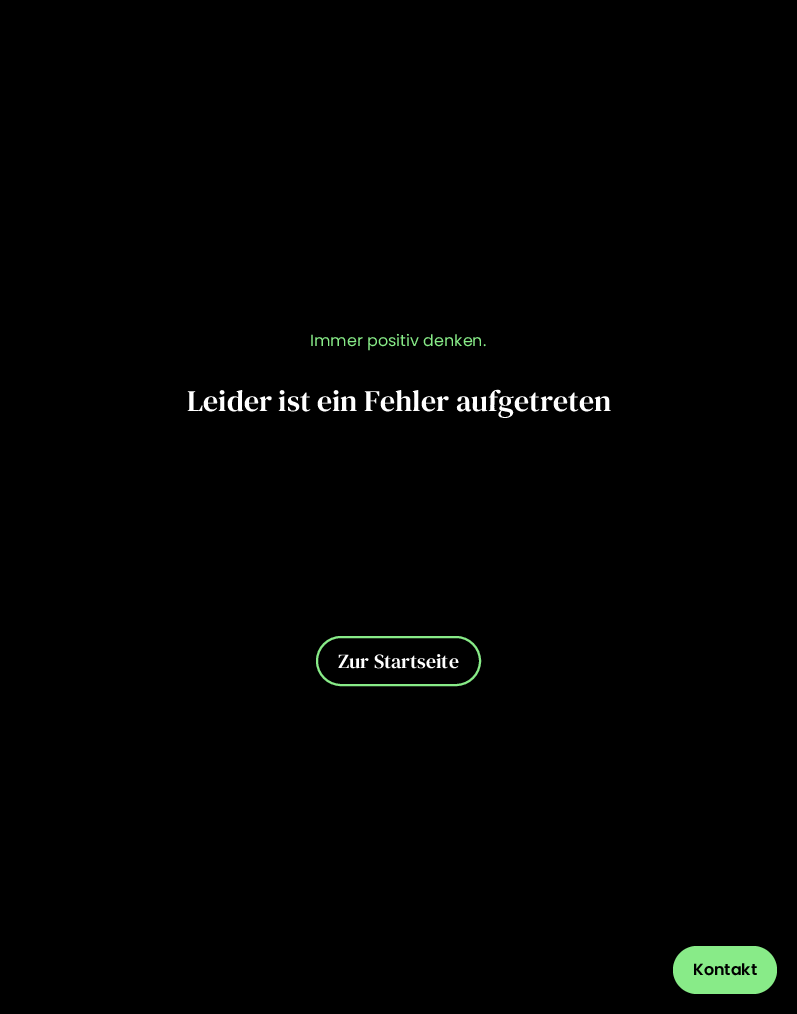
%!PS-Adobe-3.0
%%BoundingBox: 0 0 797 1014
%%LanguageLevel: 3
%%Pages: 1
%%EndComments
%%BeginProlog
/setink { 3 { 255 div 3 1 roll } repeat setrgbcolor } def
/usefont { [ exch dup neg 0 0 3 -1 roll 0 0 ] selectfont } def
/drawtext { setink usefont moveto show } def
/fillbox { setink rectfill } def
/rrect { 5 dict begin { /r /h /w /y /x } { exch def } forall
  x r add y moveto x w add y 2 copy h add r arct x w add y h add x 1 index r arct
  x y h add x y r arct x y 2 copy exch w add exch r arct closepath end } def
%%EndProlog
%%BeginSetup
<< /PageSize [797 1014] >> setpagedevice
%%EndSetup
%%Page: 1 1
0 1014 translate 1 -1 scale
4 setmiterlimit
0 0 797 1014 0 0 0 fillbox
(Immer positiv denken.) 310 346 /Poppins-Regular 16 136 235 136 drawtext
(Leider ist ein Fehler aufgetreten) 187 411 /DMSerifText-Regular 30 255 255 255 drawtext
136 235 136 setink
2 setlinewidth
317 637 163 48 24 rrect stroke
(Zur Startseite) 338 668 /DMSerifText-Regular 20 255 255 255 drawtext
136 235 136 setink
673 946 104 48 24 rrect fill
(Kontakt) 693 975 /Poppins-SemiBold 16 0 0 0 drawtext
showpage
%%EOF
